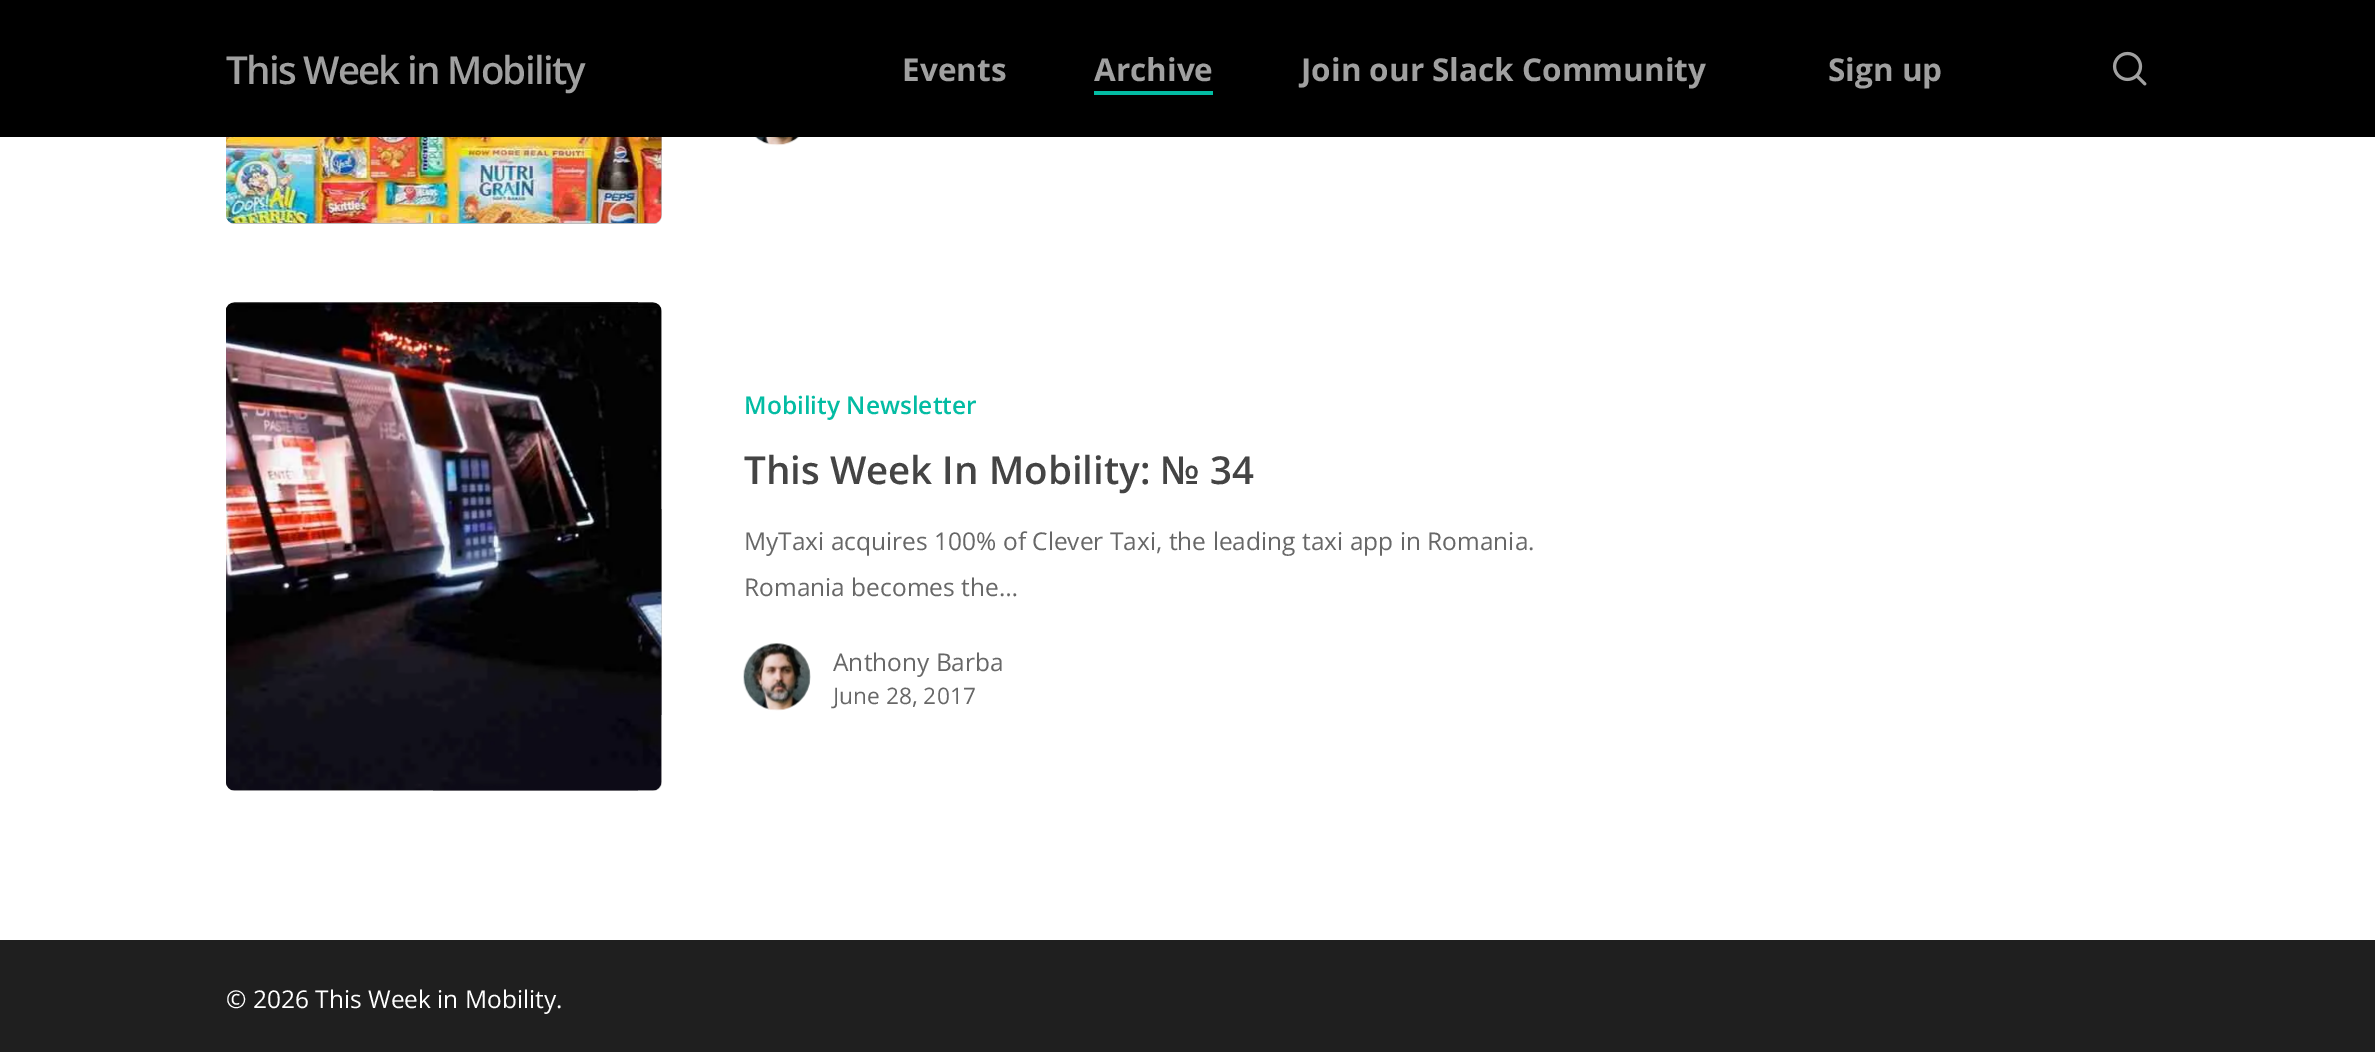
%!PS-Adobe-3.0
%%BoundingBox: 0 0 2375 1052
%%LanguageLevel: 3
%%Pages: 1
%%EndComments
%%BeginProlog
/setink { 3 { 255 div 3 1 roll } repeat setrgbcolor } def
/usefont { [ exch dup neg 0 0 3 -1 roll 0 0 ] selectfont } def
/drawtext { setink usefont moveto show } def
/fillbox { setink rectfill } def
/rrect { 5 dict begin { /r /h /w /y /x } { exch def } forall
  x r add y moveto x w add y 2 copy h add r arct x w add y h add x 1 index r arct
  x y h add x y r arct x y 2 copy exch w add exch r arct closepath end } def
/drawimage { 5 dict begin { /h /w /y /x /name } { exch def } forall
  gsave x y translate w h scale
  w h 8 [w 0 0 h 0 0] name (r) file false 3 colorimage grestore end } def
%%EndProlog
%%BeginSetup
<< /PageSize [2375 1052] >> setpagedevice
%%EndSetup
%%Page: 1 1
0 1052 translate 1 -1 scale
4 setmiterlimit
0 0 2375 1052 255 255 255 fillbox
191 191 191 setink
226 -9 436 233 9 rrect fill
0 0 2375 137 0 0 0 fillbox
/OpenSans-SemiBold 38.5 usefont
160 160 160 setink
226 84 moveto -1.75 0 (This Week in Mobility) ashow
(Events) 902 81 /OpenSans-Bold 31.5 160 160 160 drawtext
(Archive) 1094 81 /OpenSans-Bold 31.5 160 160 160 drawtext
1094 91 119 4 3 188 163 fillbox
(Join our Slack Community) 1301 81 /OpenSans-Bold 31.5 160 160 160 drawtext
(Sign up) 1828 81 /OpenSans-Bold 31.5 160 160 160 drawtext
(assets/img1.rgb) 2112 51 35 35 drawimage
(assets/img2.rgb) 226 137 436 86 drawimage
(assets/img3.rgb) 755 137 44 9 drawimage
192 192 192 setink
226 303 436 488 9 rrect fill
(assets/img4.rgb) 226 302 436 489 drawimage
(Mobility Newsletter) 744 414 /OpenSans-SemiBold 24.5 3 188 163 drawtext
(This Week In Mobility: № 34) 744 484 /OpenSans-SemiBold 38.5 68 68 68 drawtext
(MyTaxi acquires 100% of Clever Taxi, the leading taxi app in Romania.) 744 550 /OpenSans-Regular 24.5 103 103 103 drawtext
(Romania becomes the…) 744 596 /OpenSans-Regular 24.5 103 103 103 drawtext
(assets/img5.rgb) 743 643 68 68 drawimage
(Anthony Barba) 833 671 /OpenSans-Regular 24.5 103 103 103 drawtext
(June 28, 2017) 833 704 /OpenSans-Regular 22.75 103 103 103 drawtext
0 940 2375 112 31 31 31 fillbox
(© 2026 This Week in Mobility.) 226 1008 /OpenSans-Regular 24.5 255 255 255 drawtext
showpage
%%EOF
